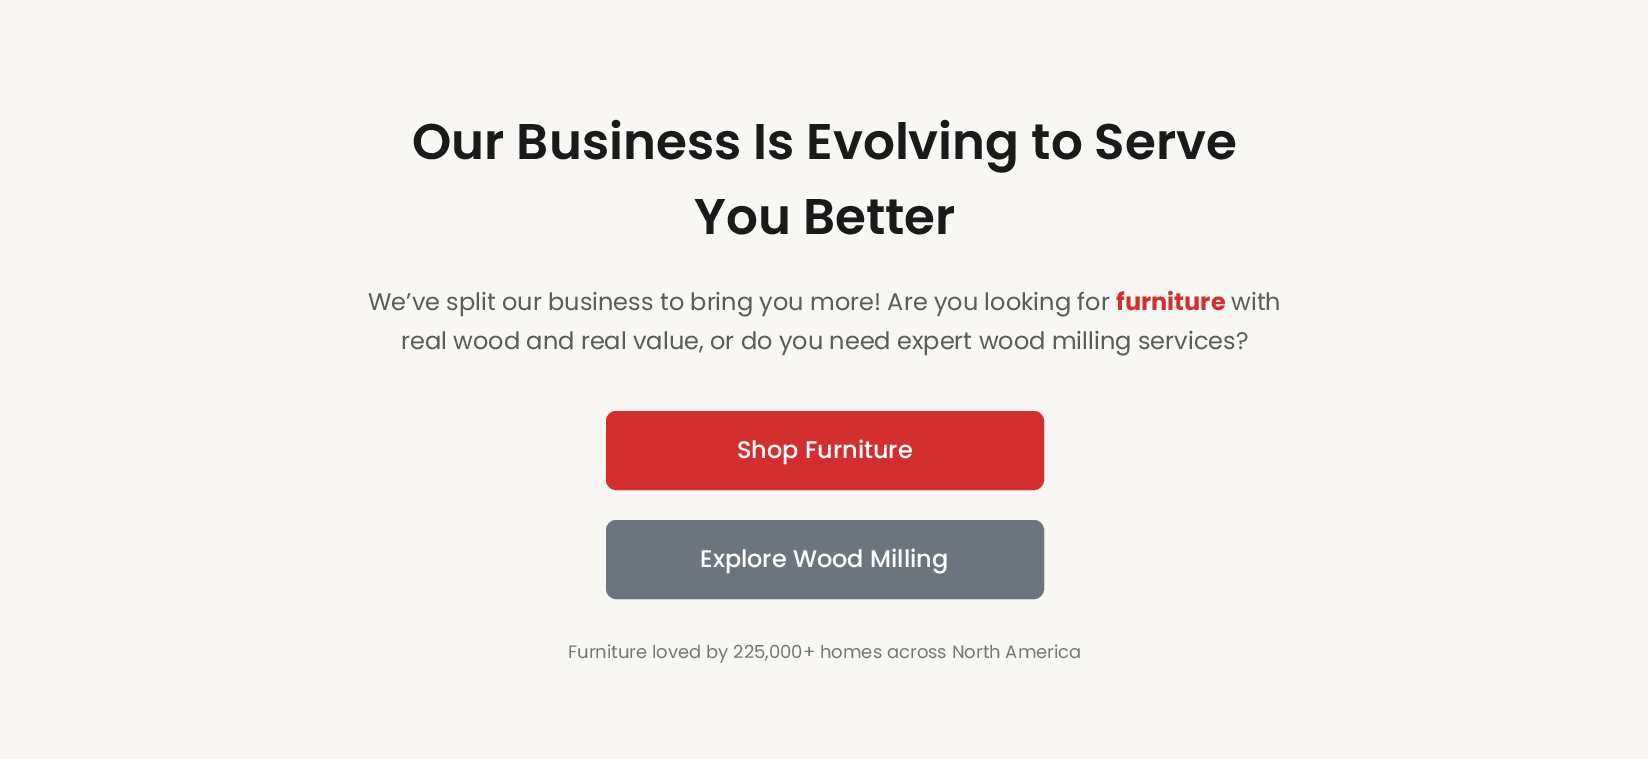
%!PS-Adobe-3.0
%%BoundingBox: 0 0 1648 759
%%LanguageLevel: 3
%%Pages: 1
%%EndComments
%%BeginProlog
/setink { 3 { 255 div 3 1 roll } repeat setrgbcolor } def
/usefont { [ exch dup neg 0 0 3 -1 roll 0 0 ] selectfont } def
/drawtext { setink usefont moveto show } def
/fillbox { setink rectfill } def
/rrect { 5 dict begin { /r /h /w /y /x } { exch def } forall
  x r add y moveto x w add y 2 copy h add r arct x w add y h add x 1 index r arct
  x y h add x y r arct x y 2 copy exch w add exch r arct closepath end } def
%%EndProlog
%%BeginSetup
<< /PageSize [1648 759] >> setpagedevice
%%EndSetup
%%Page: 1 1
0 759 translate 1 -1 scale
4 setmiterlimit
0 0 1648 759 248 247 244 fillbox
(Our Business Is Evolving to Serve) 412 159 /Poppins-SemiBold 50 26 26 26 drawtext
(You Better) 694 234 /Poppins-SemiBold 50 26 26 26 drawtext
(We’ve split our business to bring you more! Are you looking for) 368 310 /Poppins-Regular 24 92 92 92 drawtext
(furniture) 1116 310 /Poppins-Bold 24 211 47 47 drawtext
(with) 1231 310 /Poppins-Regular 24 92 92 92 drawtext
(real wood and real value, or do you need expert wood milling services?) 401 349 /Poppins-Regular 24 92 92 92 drawtext
211 47 47 setink
607.5 412.5 435 76 8.5 rrect gsave fill grestore
3 setlinewidth
stroke
(Shop Furniture) 737 458 /Poppins-Medium 24 255 255 255 drawtext
108 117 125 setink
607.5 521.5 435 76 8.5 rrect gsave fill grestore
stroke
(Explore Wood Milling) 700 567 /Poppins-Medium 24 255 255 255 drawtext
(Furniture loved by 225,000+ homes across North America) 568 658 /Poppins-Regular 18 119 119 119 drawtext
showpage
%%EOF
